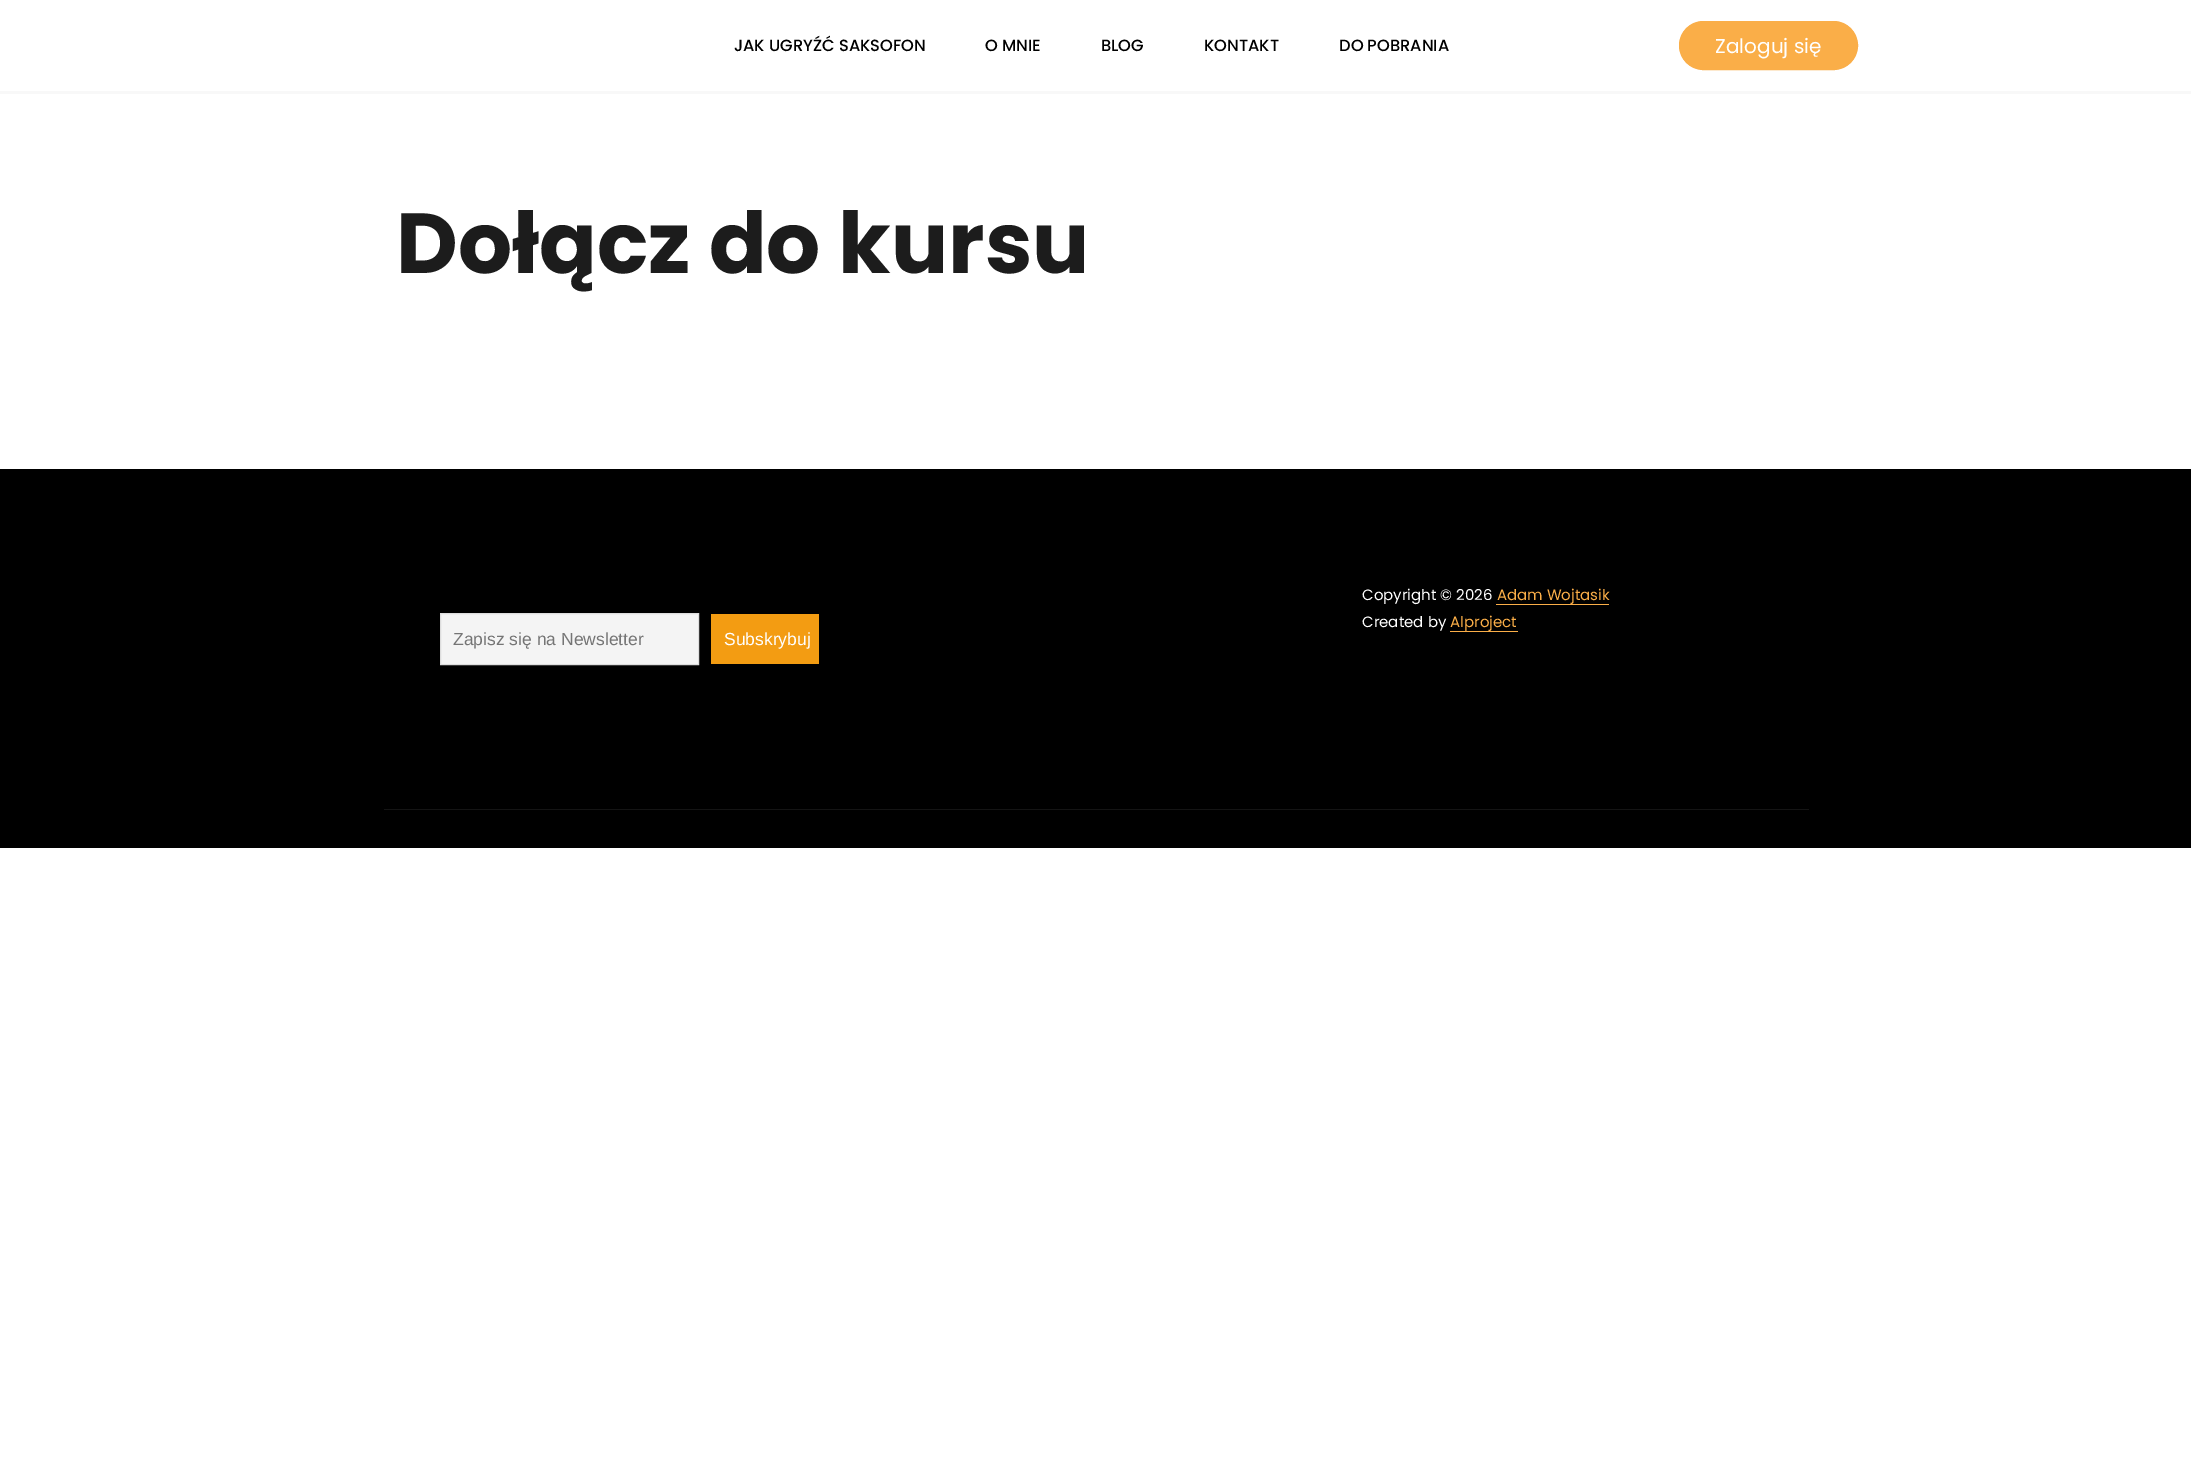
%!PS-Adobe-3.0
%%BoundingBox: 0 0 2191 1481
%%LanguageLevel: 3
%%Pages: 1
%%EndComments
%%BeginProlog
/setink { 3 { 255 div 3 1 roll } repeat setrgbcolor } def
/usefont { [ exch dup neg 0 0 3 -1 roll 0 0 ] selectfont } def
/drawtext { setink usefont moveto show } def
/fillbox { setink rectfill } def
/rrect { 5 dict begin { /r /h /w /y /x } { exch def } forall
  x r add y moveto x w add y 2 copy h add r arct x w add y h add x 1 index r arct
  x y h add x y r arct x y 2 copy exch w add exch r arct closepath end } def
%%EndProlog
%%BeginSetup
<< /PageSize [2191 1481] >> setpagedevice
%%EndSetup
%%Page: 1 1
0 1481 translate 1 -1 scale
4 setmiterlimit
0 0 2191 1481 255 255 255 fillbox
0 91 2191 3 248 248 248 fillbox
(JAK UGRYŹĆ SAKSOFON) 734 51 /Poppins-Medium 16.25 0 0 0 drawtext
(O MNIE) 985 51 /Poppins-Medium 16.25 0 0 0 drawtext
(BLOG) 1101 51 /Poppins-Medium 16.25 0 0 0 drawtext
(KONTAKT) 1204 51 /Poppins-Medium 16.25 0 0 0 drawtext
(DO POBRANIA) 1339 51 /Poppins-Medium 16.25 0 0 0 drawtext
250 174 72 setink
1679.5 21.5 178 48 24 rrect gsave fill grestore
stroke
(Zaloguj się) 1715 53 /Poppins-Regular 20 255 255 255 drawtext
(Dołącz do kursu) 396 273 /Poppins-Bold 85 28 28 28 drawtext
0 469 2191 379 0 0 0 fillbox
384 809 1425 1 20 20 20 fillbox
(Copyright © 2026) 1362 600 /Poppins-Regular 15 255 255 255 drawtext
(Adam Wojtasik) 1497 600 /Poppins-Regular 15 250 174 72 drawtext
1496 604 113 1 250 174 72 fillbox
(Created by) 1362 627 /Poppins-Regular 15 255 255 255 drawtext
(Alproject) 1450 627 /Poppins-Regular 15 250 174 72 drawtext
1450 631 68 1 250 174 72 fillbox
244 244 244 setink
440.5 613.5 moveto 698.5 613.5 lineto 698.5 664.5 lineto 440.5 664.5 lineto closepath gsave fill grestore
221 221 221 setink
stroke
(Zapisz się na Newsletter) 453 645 /LiberationSans-Regular 17.5 117 117 117 drawtext
711 614 108 50 243 156 18 fillbox
(Subskrybuj) 724 645 /LiberationSans-Regular 17.5 255 255 255 drawtext
showpage
%%EOF
